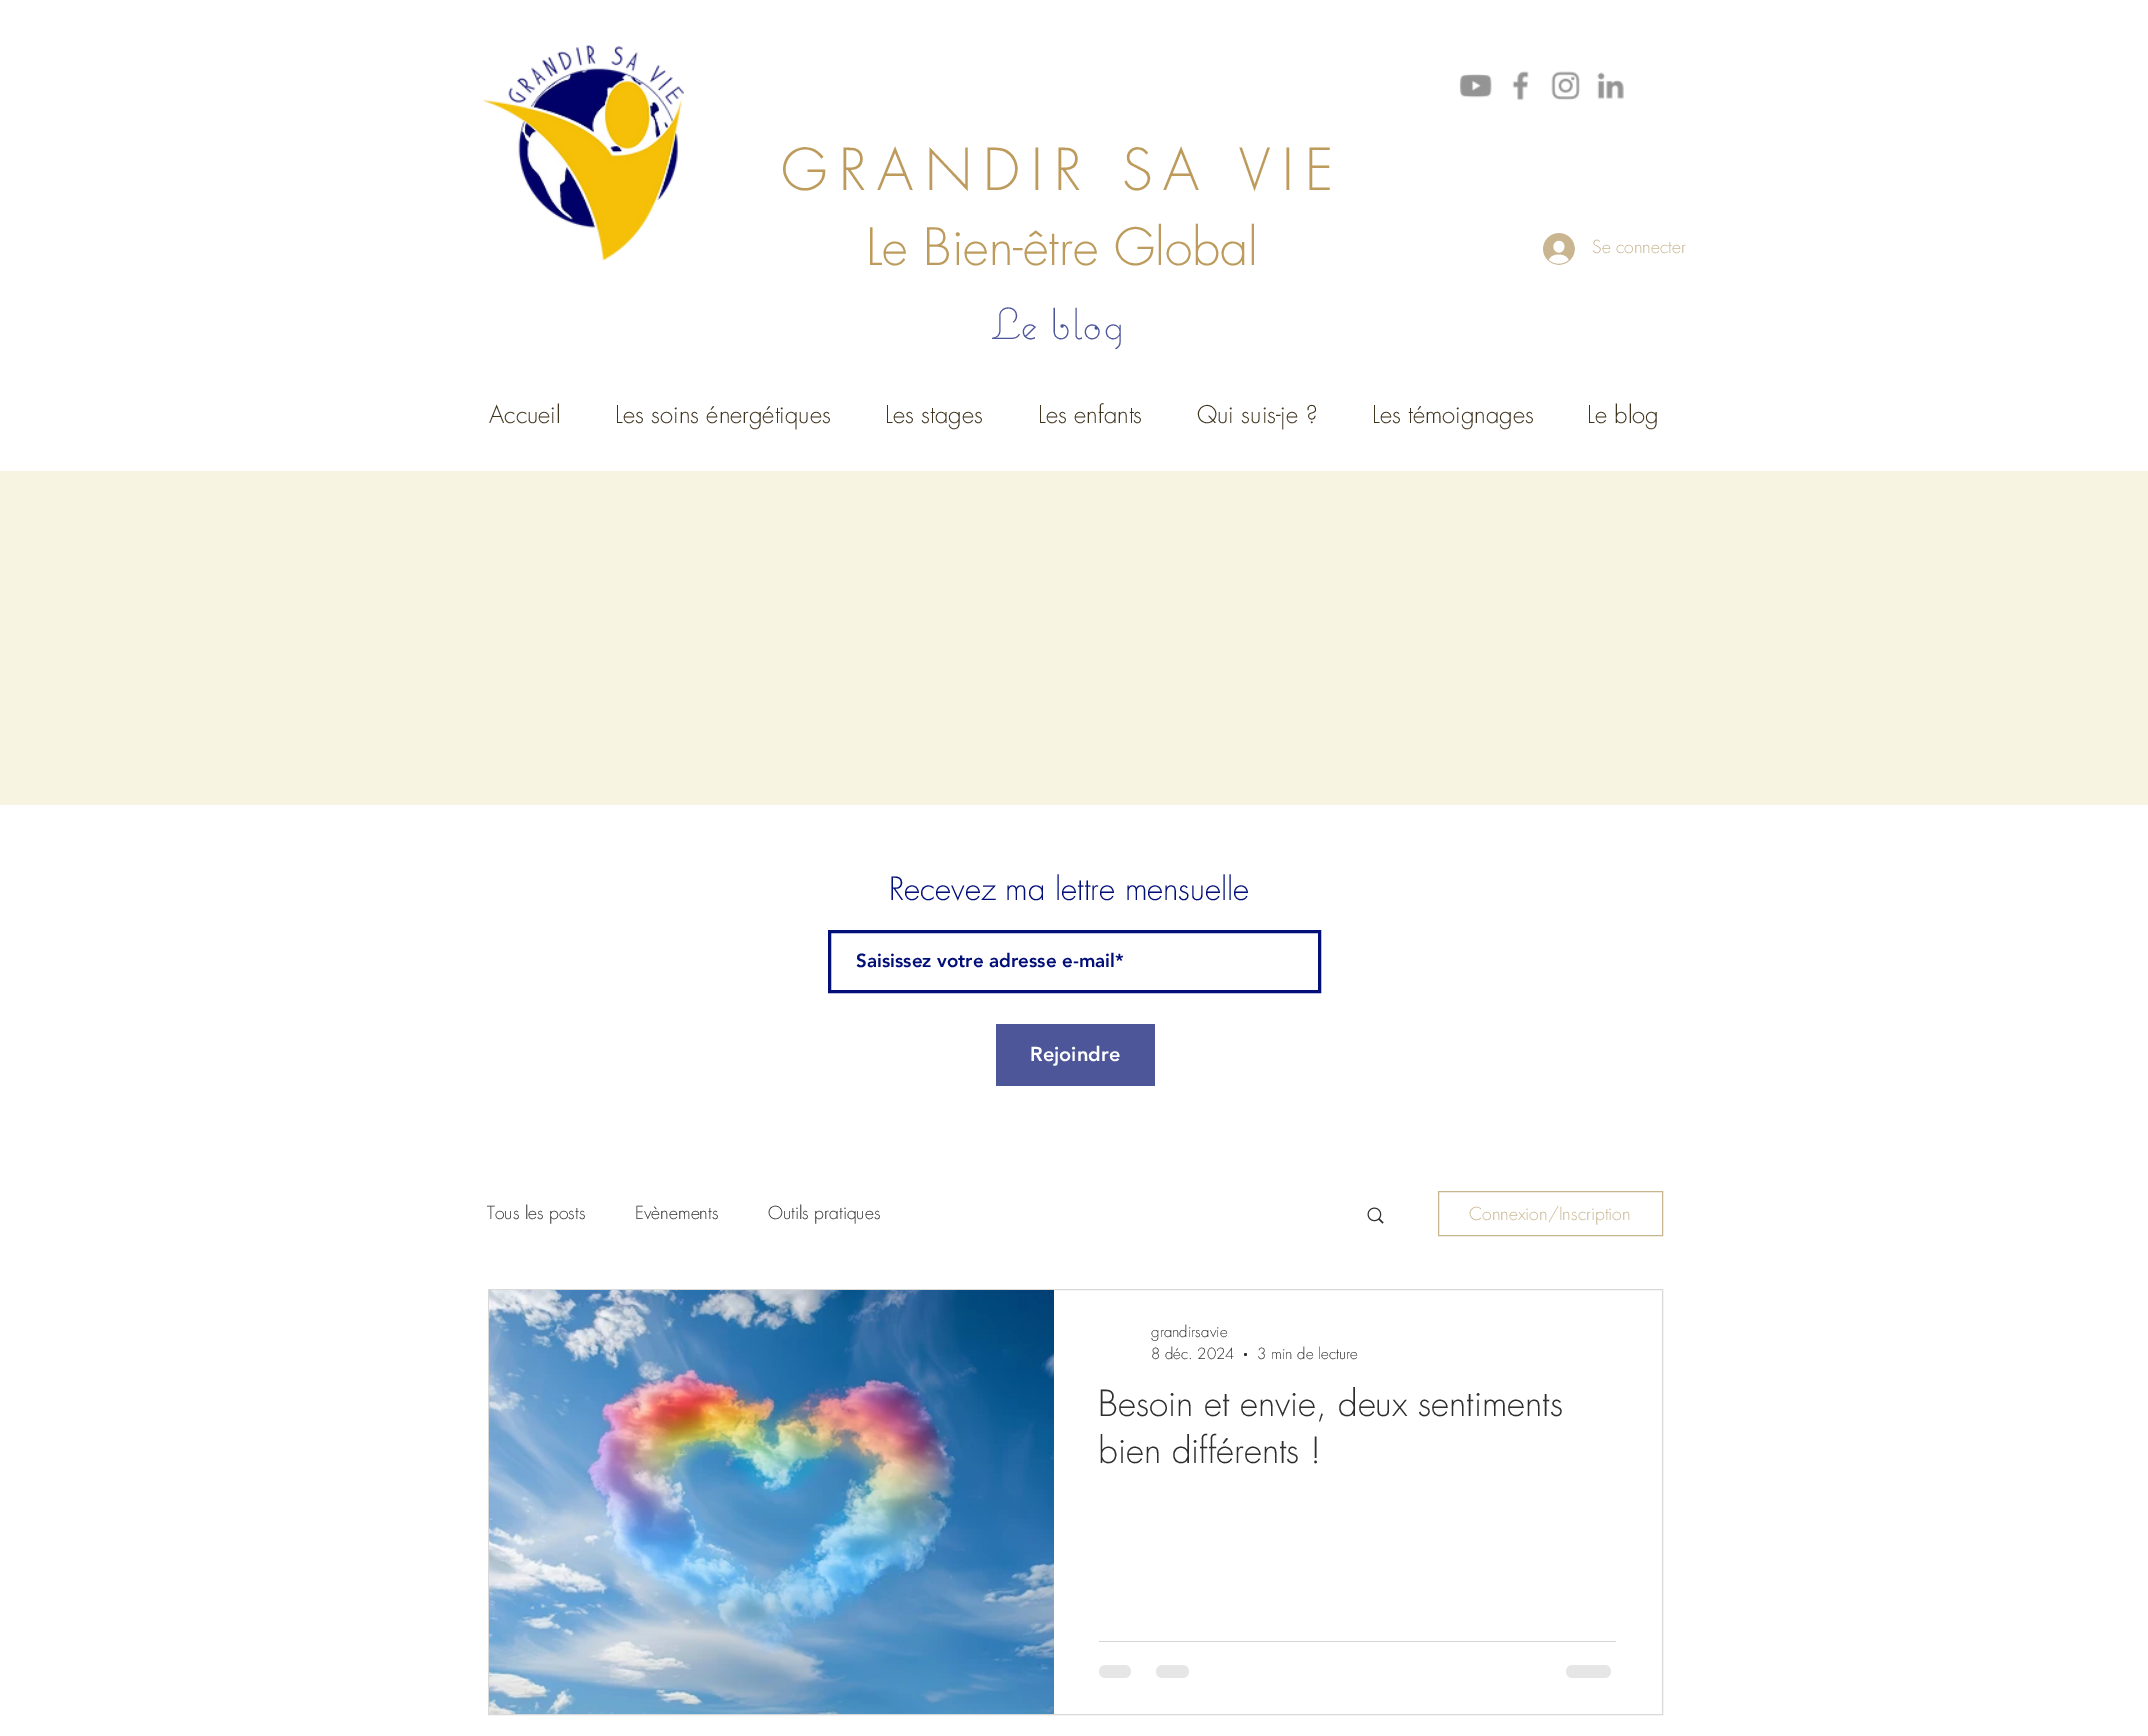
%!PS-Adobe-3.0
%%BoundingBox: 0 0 2148 1736
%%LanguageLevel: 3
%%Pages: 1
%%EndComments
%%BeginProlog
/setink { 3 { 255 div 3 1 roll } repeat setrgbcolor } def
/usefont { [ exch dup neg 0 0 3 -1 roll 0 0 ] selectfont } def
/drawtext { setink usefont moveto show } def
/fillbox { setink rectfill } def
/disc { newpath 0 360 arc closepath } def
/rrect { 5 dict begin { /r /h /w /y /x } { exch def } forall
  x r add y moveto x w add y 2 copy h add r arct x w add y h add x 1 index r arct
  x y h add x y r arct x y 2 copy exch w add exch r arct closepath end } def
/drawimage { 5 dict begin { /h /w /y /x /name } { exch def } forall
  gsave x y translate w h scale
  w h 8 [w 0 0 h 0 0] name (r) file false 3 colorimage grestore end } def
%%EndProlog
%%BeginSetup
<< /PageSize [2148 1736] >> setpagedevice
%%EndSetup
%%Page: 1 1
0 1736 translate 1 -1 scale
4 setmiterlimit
0 0 2148 1736 255 255 255 fillbox
(assets/img1.rgb) 482 45 202 216 drawimage
(assets/img2.rgb) 1459 74 33 24 drawimage
(assets/img3.rgb) 1512 71 17 30 drawimage
(assets/img4.rgb) 1551 71 29 29 drawimage
(assets/img5.rgb) 1597 72 27 27 drawimage
/futura-Light 56.25 usefont
188 155 93 setink
781 190 moveto 11.25 0 (GRANDIR SA VIE) ashow
(Le Bien-être Global) 866 265 /futura-Light 50 188 155 93 drawtext
(assets/img6.rgb) 1543 233 32 32 drawimage
(Se connecter) 1592 253 /futura-Light 17.5 201 182 145 drawtext
(Accueil) 489 423 /futura-Light 23.75 63 52 31 drawtext
(Les soins énergétiques) 615 423 /futura-Light 23.75 63 52 31 drawtext
(Les stages) 885 423 /futura-Light 23.75 63 52 31 drawtext
(Les enfants) 1038 423 /futura-Light 23.75 63 52 31 drawtext
(Qui suis-je ?) 1197 423 /futura-Light 23.75 63 52 31 drawtext
(Les témoignages) 1372 423 /futura-Light 23.75 63 52 31 drawtext
(Le blog) 1587 423 /futura-Light 23.75 63 52 31 drawtext
(Le blog) 991 339 /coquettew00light-Light 44 78 86 154 drawtext
(Recevez ma lettre mensuelle) 889 900 /futura-Light 31.25 2 15 120 drawtext
3 setlinewidth
829.5 931.5 490 60 rectstroke
(Saisissez votre adresse e-mail*) 856 967 /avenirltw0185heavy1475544-Black 18.75 2 15 120 drawtext
996 1024 159 62 78 86 154 fillbox
(Rejoindre) 1030 1061 /avenirltw0185heavy1475544-Black 20 255 255 255 drawtext
(Tous les posts) 487 1219 /futura-Light 17.5 47 46 46 drawtext
(Evènements) 635 1219 /futura-Light 17.5 47 46 46 drawtext
(Outils pratiques) 768 1219 /futura-Light 17.5 47 46 46 drawtext
(assets/img7.rgb) 1367 1207 17 17 drawimage
201 182 145 setink
1 setlinewidth
1438.5 1191.5 224 44 rectstroke
(Connexion/Inscription) 1469 1220 /futura-Light 17.5 201 182 145 drawtext
217 217 217 setink
488.5 1289.5 1174 425 rectstroke
(assets/img8.rgb) 489 1290 565 424 drawimage
(grandirsavie) 1151 1337 /futura-Light 15 47 46 46 drawtext
(8 déc. 2024) 1151 1359 /futura-Light 15 47 46 46 drawtext
1245.5 1354.5 1.5 disc fill
(3 min de lecture) 1257 1359 /futura-Light 15 47 46 46 drawtext
(Besoin et envie, deux sentiments) 1098 1416 /futura-Light 35 47 46 46 drawtext
(bien différents !) 1098 1463 /futura-Light 35 47 46 46 drawtext
1099 1641 517 1 213 213 213 fillbox
230 230 230 setink
1099 1665 32 13 6.5 rrect fill
1156 1665 33 13 6.5 rrect fill
1566 1665 45 13 6.5 rrect fill
0 471 2148 334 247 245 225 fillbox
showpage
%%EOF
